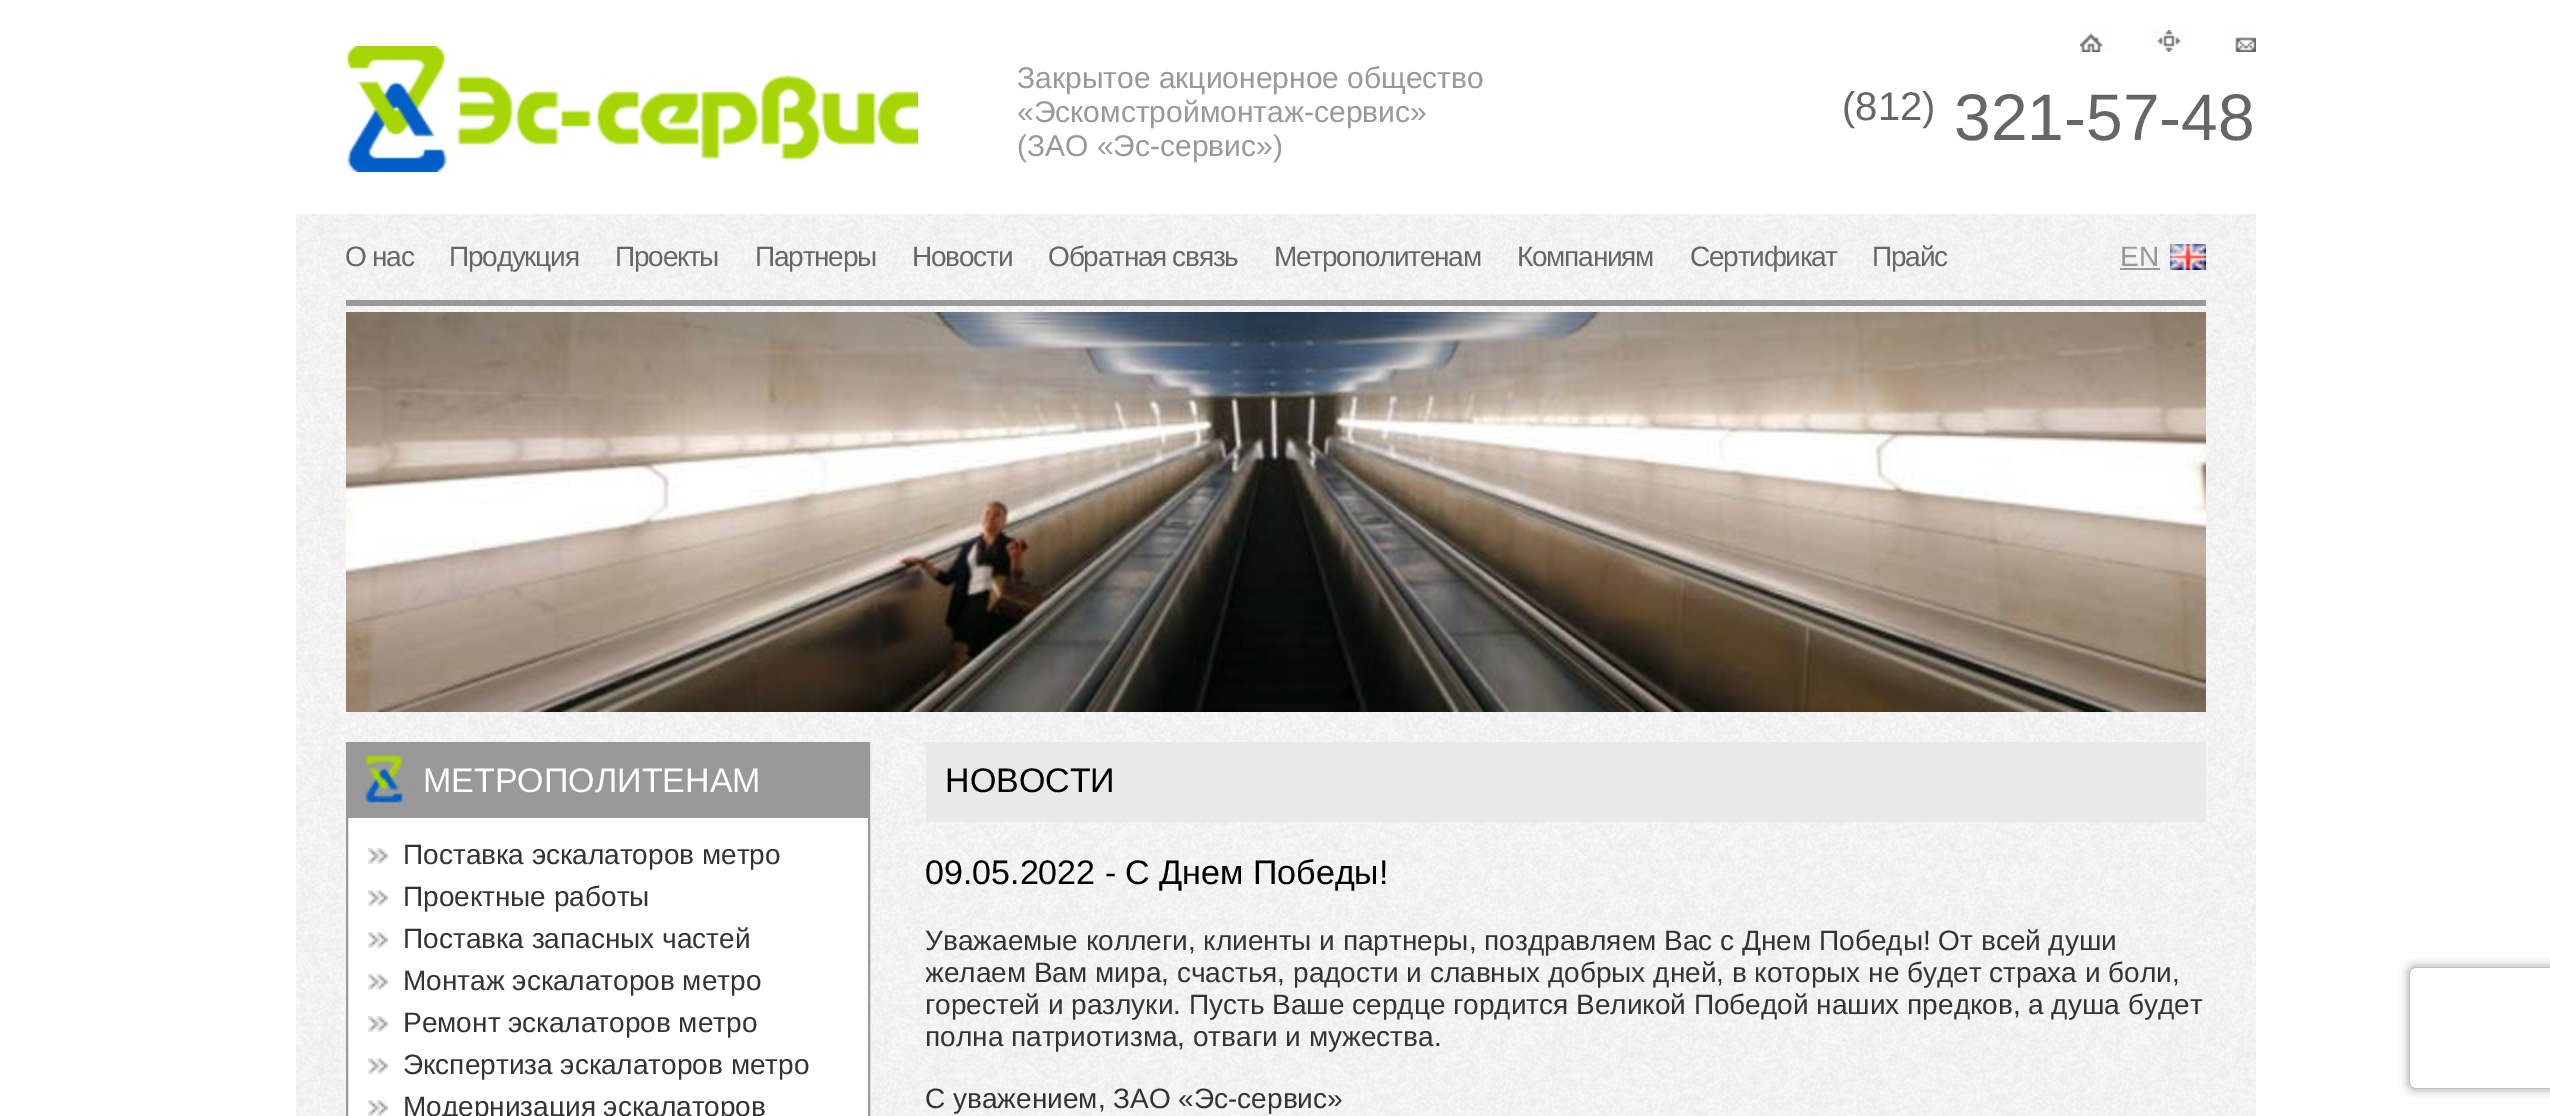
%!PS-Adobe-3.0
%%BoundingBox: 0 0 2550 1116
%%LanguageLevel: 3
%%Pages: 1
%%EndComments
%%BeginProlog
/setink { 3 { 255 div 3 1 roll } repeat setrgbcolor } def
/usefont { [ exch dup neg 0 0 3 -1 roll 0 0 ] selectfont } def
/drawtext { setink usefont moveto show } def
/fillbox { setink rectfill } def
/setalpha { dup .setfillconstantalpha .setstrokeconstantalpha } def
/rrect { 5 dict begin { /r /h /w /y /x } { exch def } forall
  x r add y moveto x w add y 2 copy h add r arct x w add y h add x 1 index r arct
  x y h add x y r arct x y 2 copy exch w add exch r arct closepath end } def
/softshadow { 12 dict begin { /a /b /q /h /w /y /x } { exch def } forall gsave /was 0 def
  9 -2 -9 { dup b mul 4 div /e exch def 1 sub .425 mul 2.718 exch exp 1 add a .99 .min exch div /now exch def
    1 1 now sub 1 was sub div sub setalpha /was now def
    w h .min e 2 mul add 0 gt { x e sub y e sub w e 2 mul add h e 2 mul add
      q e add b .6 mul add w h .min 2 div e add .min 0 .max rrect fill } if } for grestore end } def
/drawimage { 5 dict begin { /h /w /y /x /name } { exch def } forall
  gsave x y translate w h scale
  w h 8 [w 0 0 h 0 0] name (r) file false 3 colorimage grestore end } def
%%EndProlog
%%BeginSetup
<< /PageSize [2550 1116] /PageUsesTransparency true >> setpagedevice
%%EndSetup
%%Page: 1 1
0 .pushpdf14devicefilter
0 1116 translate 1 -1 scale
4 setmiterlimit
0 0 2550 1116 255 255 255 fillbox
(assets/img1.rgb) 2080 30 176 22 drawimage
(assets/img2.rgb) 347 46 571 126 drawimage
(Закрытое акционерное общество) 1017 88 /LiberationSans-Regular 30 153 153 153 drawtext
(«Эскомстроймонтаж-сервис») 1017 122 /LiberationSans-Regular 30 153 153 153 drawtext
(\(ЗАО «Эс-сервис»\)) 1017 156 /LiberationSans-Regular 30 153 153 153 drawtext
(\(812\)) 1842 120 /LiberationSans-Regular 40 102 102 102 drawtext
(321-57-48) 1954 140 /LiberationSans-Regular 66 102 102 102 drawtext
(assets/img3.rgb) 296 214 1960 902 drawimage
346 300 1860 6 153 153 153 fillbox
/LiberationSans-Regular 28 usefont
102 102 102 setink
345 266 moveto -1.25 0 (О нас) ashow
449 266 moveto -1.25 0 (Продукция) ashow
615 266 moveto -1.25 0 (Проекты) ashow
755 266 moveto -1.25 0 (Партнеры) ashow
912 266 moveto -1.25 0 (Новости) ashow
1048 266 moveto -1.25 0 (Обратная связь) ashow
1274 266 moveto -1.25 0 (Метрополитенам) ashow
1517 266 moveto -1.25 0 (Компаниям) ashow
1690 266 moveto -1.25 0 (Сертификат) ashow
1872 266 moveto -1.25 0 (Прайс) ashow
(EN) 2120 266 /LiberationSans-Regular 28 153 153 153 drawtext
2120 268 40 2 153 153 153 fillbox
(assets/img4.rgb) 2170 244 36 26 drawimage
(assets/img5.rgb) 346 312 1860 400 drawimage
348 818 520 298 255 255 255 fillbox
153 153 153 setink
2 setlinewidth
347 743 522 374 rectstroke
348 744 520 74 153 153 153 fillbox
(assets/img6.rgb) 364 744 48 74 drawimage
(МЕТРОПОЛИТЕНАМ) 423 792 /LiberationSans-Regular 34 255 255 255 drawtext
(assets/img7.rgb) 368 848 20 16 drawimage
(Поставка эскалаторов метро) 403 864 /LiberationSans-Regular 28 51 51 51 drawtext
(assets/img7.rgb) 368 890 20 16 drawimage
(Проектные работы) 403 906 /LiberationSans-Regular 28 51 51 51 drawtext
(assets/img7.rgb) 368 932 20 16 drawimage
(Поставка запасных частей) 403 948 /LiberationSans-Regular 28 51 51 51 drawtext
(assets/img7.rgb) 368 974 20 16 drawimage
(Монтаж эскалаторов метро) 403 990 /LiberationSans-Regular 28 51 51 51 drawtext
(assets/img7.rgb) 368 1016 20 16 drawimage
(Ремонт эскалаторов метро) 403 1032 /LiberationSans-Regular 28 51 51 51 drawtext
(assets/img7.rgb) 368 1058 20 16 drawimage
(Экспертиза эскалаторов метро) 403 1074 /LiberationSans-Regular 28 51 51 51 drawtext
(assets/img7.rgb) 368 1100 20 16 drawimage
(Модернизация эскалаторов) 403 1116 /LiberationSans-Regular 28 51 51 51 drawtext
926 742 1280 80 233 233 233 fillbox
(НОВОСТИ) 945 792 /LiberationSans-Regular 34 0 0 0 drawtext
(09.05.2022 - С Днем Победы!) 925 884 /LiberationSans-Regular 34 0 0 0 drawtext
(Уважаемые коллеги, клиенты и партнеры, поздравляем Вас с Днем Победы! От всей души) 925 950 /LiberationSans-Regular 28 51 51 51 drawtext
gsave
926 712 1280 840 rectclip
(желаем Вам мира, счастья, радости и славных добрых дней, в которых не будет страха и боли,) 925 982 /LiberationSans-Regular 28 51 51 51 drawtext
grestore
(горестей и разлуки. Пусть Ваше сердце гордится Великой Победой наших предков, а душа будет) 925 1014 /LiberationSans-Regular 28 51 51 51 drawtext
(полна патриотизма, отваги и мужества.) 925 1046 /LiberationSans-Regular 28 51 51 51 drawtext
(С уважением, ЗАО «Эс-сервис») 925 1108 /LiberationSans-Regular 28 51 51 51 drawtext
gsave
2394 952 moveto 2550 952 lineto 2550 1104 lineto 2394 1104 lineto closepath 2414 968 moveto 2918 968 lineto 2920 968 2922 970 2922 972 curveto 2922 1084 lineto 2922 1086 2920 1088 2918 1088 curveto 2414 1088 lineto 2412 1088 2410 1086 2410 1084 curveto 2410 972 lineto 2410 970 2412 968 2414 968 curveto closepath eoclip newpath
128 128 128 setink
2410 968 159 120 4 5 1 softshadow
grestore
.poppdf14devicefilter showpage
%%EOF
